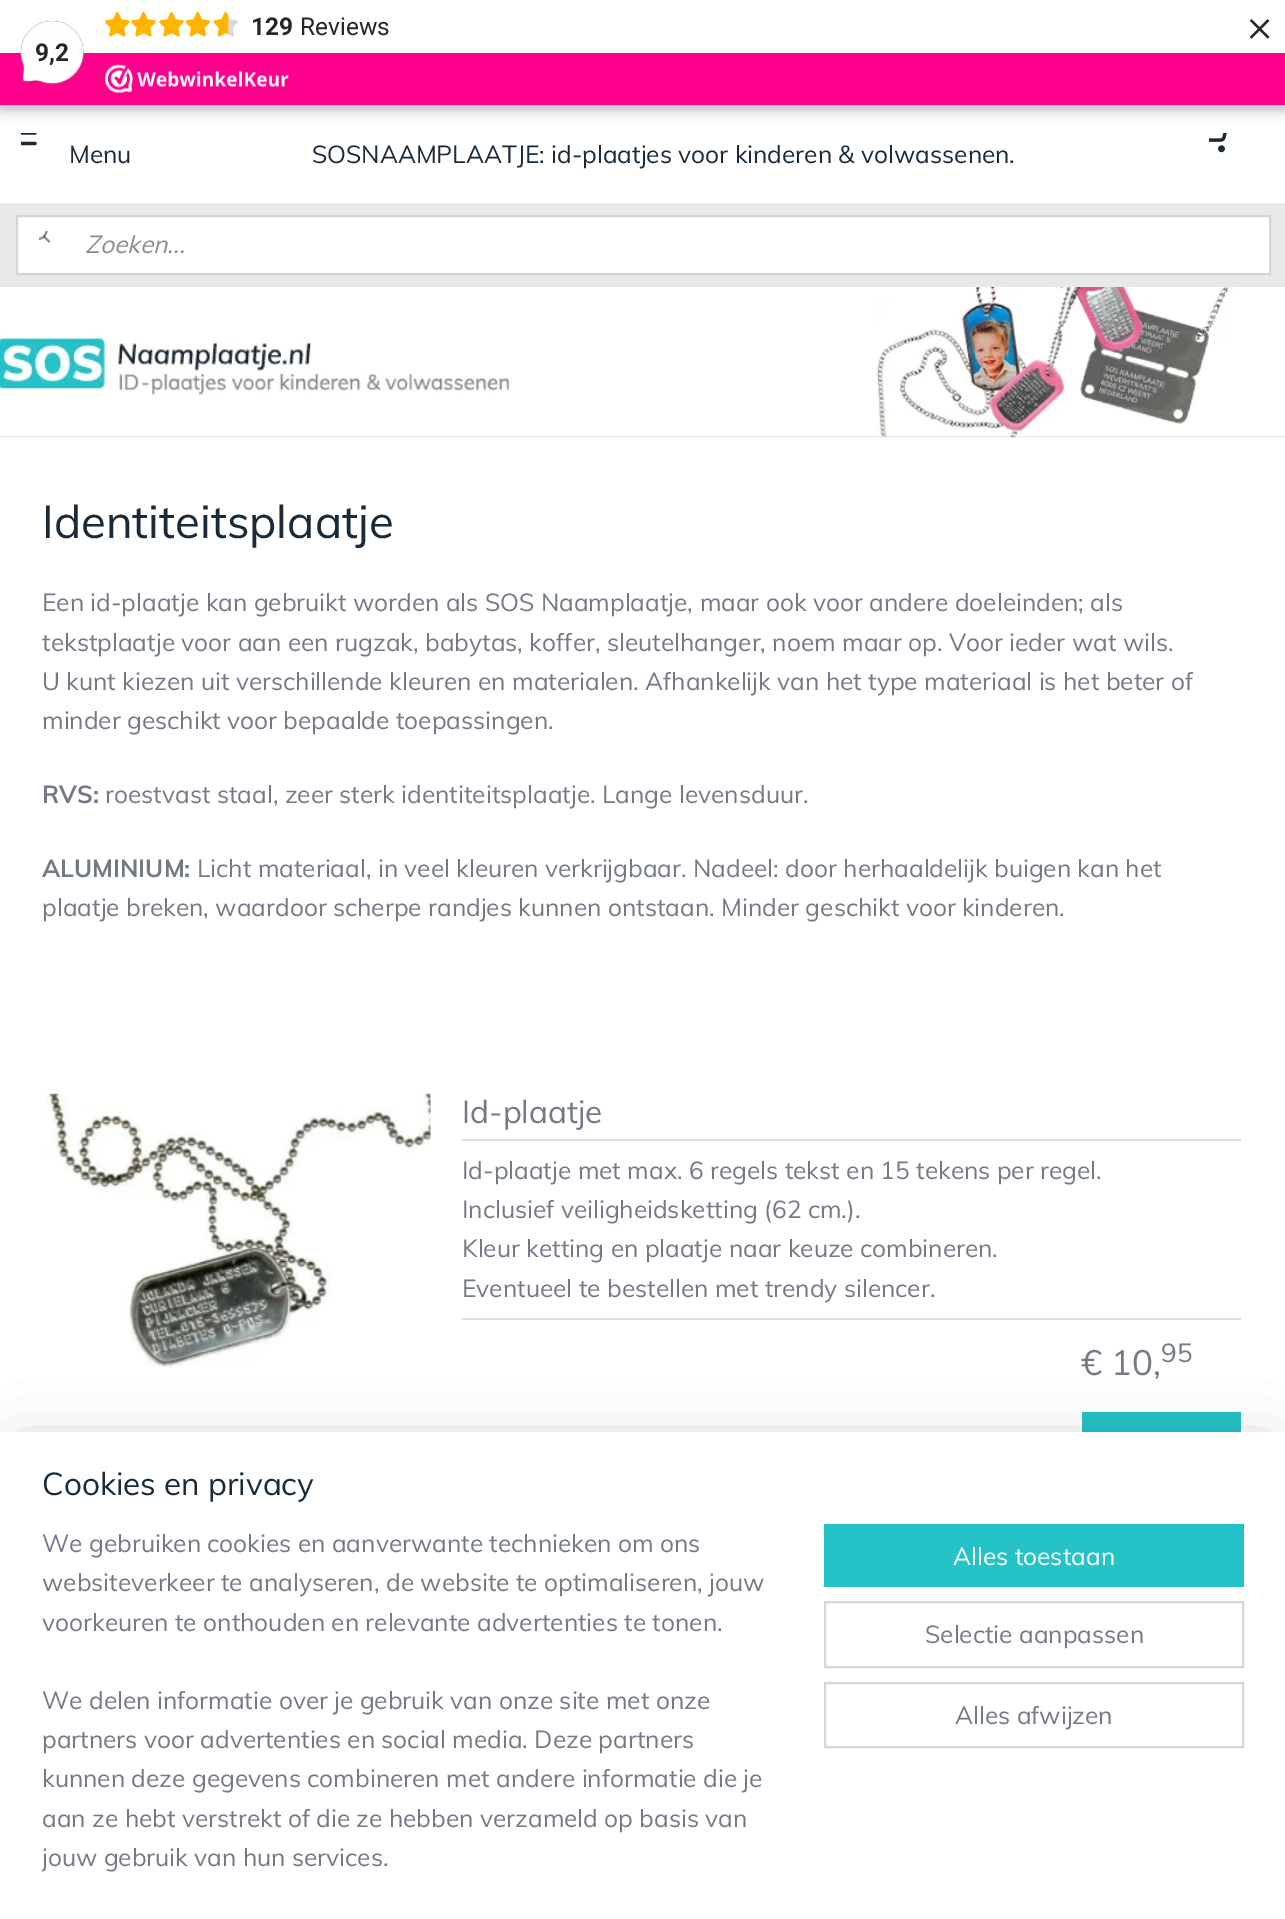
%!PS-Adobe-3.0
%%BoundingBox: 0 0 1285 1919
%%LanguageLevel: 3
%%Pages: 1
%%EndComments
%%BeginProlog
/setink { 3 { 255 div 3 1 roll } repeat setrgbcolor } def
/usefont { [ exch dup neg 0 0 3 -1 roll 0 0 ] selectfont } def
/drawtext { setink usefont moveto show } def
/fillbox { setink rectfill } def
/setalpha { dup .setfillconstantalpha .setstrokeconstantalpha } def
/rrect { 5 dict begin { /r /h /w /y /x } { exch def } forall
  x r add y moveto x w add y 2 copy h add r arct x w add y h add x 1 index r arct
  x y h add x y r arct x y 2 copy exch w add exch r arct closepath end } def
/softshadow { 12 dict begin { /a /b /q /h /w /y /x } { exch def } forall gsave /was 0 def
  9 -2 -9 { dup b mul 4 div /e exch def 1 sub .425 mul 2.718 exch exp 1 add a .99 .min exch div /now exch def
    1 1 now sub 1 was sub div sub setalpha /was now def
    w h .min e 2 mul add 0 gt { x e sub y e sub w e 2 mul add h e 2 mul add
      q e add b .6 mul add w h .min 2 div e add .min 0 .max rrect fill } if } for grestore end } def
/drawimage { 5 dict begin { /h /w /y /x /name } { exch def } forall
  gsave x y translate w h scale
  w h 8 [w 0 0 h 0 0] name (r) file false 3 colorimage grestore end } def
%%EndProlog
%%BeginSetup
<< /PageSize [1285 1919] /PageUsesTransparency true >> setpagedevice
%%EndSetup
%%Page: 1 1
0 .pushpdf14devicefilter
0 1919 translate 1 -1 scale
4 setmiterlimit
0 0 1285 1919 255 255 255 fillbox
0 0 0 setink
-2 -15 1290 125 0 5 0.15 softshadow
(assets/img8.rgb) 21 133 16 13 drawimage
(assets/img9.rgb) 1209 133 18 20 drawimage
0 4 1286 105 0 9 0.15 softshadow
0 0 1285 53 255 255 255 fillbox
(assets/img1.rgb) 105 12 25 25 drawimage
(assets/img2.rgb) 131 12 25 25 drawimage
(assets/img2.rgb) 159 12 25 25 drawimage
(assets/img3.rgb) 186 12 24 25 drawimage
(assets/img4.rgb) 214 12 24 25 drawimage
(assets/img5.rgb) 214 12 15 25 drawimage
(129) 251 35 /Roboto-Bold 24.5 39 38 38 drawtext
(Reviews) 300 35 /Roboto-Regular 24.5 39 38 38 drawtext
(×) 1247 41 /Muli-Regular 42 39 38 38 drawtext
0 53 1285 52 254 0 140 fillbox
(assets/img6.rgb) 20 20 65 65 drawimage
(9,2) 35 61 /Roboto-Bold 24.5 39 38 38 drawtext
(assets/img7.rgb) 105 64 184 29 drawimage
(Menu) 69 163 /Muli-Regular 24.5 25 43 58 drawtext
(SOSNAAMPLAATJE: id-plaatjes voor kinderen & volwassenen.) 312 163 /Muli-Regular 24.5 25 43 58 drawtext
0 203 1285 84 233 233 233 fillbox
255 255 255 setink
17 216 moveto 1270 216 lineto 1270 274 lineto 17 274 lineto closepath gsave fill grestore
211 213 217 setink
2 setlinewidth
stroke
(assets/img10.rgb) 39 231 12 12 drawimage
(Zoeken...) 85 253 /Muli-Italic 24.5 137 140 145 drawtext
(assets/img11.rgb) 0 287 1285 151 drawimage
(Identiteitsplaatje) 42 538 /Muli-Regular 45.5 25 43 58 drawtext
(Een id-plaatje kan gebruikt worden als SOS Naamplaatje, maar ook voor andere doeleinden; als) 42 611 /Muli-Regular 24.5 116 121 134 drawtext
(tekstplaatje voor aan een rugzak, babytas, koffer, sleutelhanger, noem maar op. Voor ieder wat wils.) 42 651 /Muli-Regular 24.5 116 121 134 drawtext
(U kunt kiezen uit verschillende kleuren en materialen. Afhankelijk van het type materiaal is het beter of) 42 690 /Muli-Regular 24.5 116 121 134 drawtext
(minder geschikt voor bepaalde toepassingen.) 42 729 /Muli-Regular 24.5 116 121 134 drawtext
(RVS:) 42 803 /Muli-Bold 24.5 116 121 134 drawtext
(roestvast staal, zeer sterk identiteitsplaatje. Lange levensduur.) 105 803 /Muli-Regular 24.5 116 121 134 drawtext
(ALUMINIUM:) 42 877 /Muli-Bold 24.5 116 121 134 drawtext
(Licht materiaal, in veel kleuren verkrijgbaar. Nadeel: door herhaaldelijk buigen kan het) 197 877 /Muli-Regular 24.5 116 121 134 drawtext
(plaatje breken, waardoor scherpe randjes kunnen ontstaan. Minder geschikt voor kinderen.) 42 916 /Muli-Regular 24.5 116 121 134 drawtext
(assets/img12.rgb) 430 1218 1 32 drawimage
(assets/img13.rgb) 46 1093 385 275 drawimage
462 1139 779 2 222 222 222 fillbox
(Id-plaatje) 462 1123 /Muli-Regular 31.5 116 121 134 drawtext
462 1318 779 2 222 222 222 fillbox
(Id-plaatje met max. 6 regels tekst en 15 tekens per regel.) 462 1179 /Muli-Regular 24.5 116 121 134 drawtext
(Inclusief veiligheidsketting \(62 cm.\).) 462 1218 /Muli-Regular 24.5 116 121 134 drawtext
(Kleur ketting en plaatje naar keuze combineren.) 462 1257 /Muli-Regular 24.5 116 121 134 drawtext
(Eventueel te bestellen met trendy silencer.) 462 1297 /Muli-Regular 24.5 116 121 134 drawtext
(€ 10,) 1081 1375 /Muli-Regular 35 116 121 134 drawtext
(95) 1161 1362 /Muli-Regular 26 116 121 134 drawtext
1082 1412 159 20 37 194 200 fillbox
0 0 0 setink
18 1449 1251 453 0 31.5 0.2 softshadow
0 1432 1285 487 255 255 255 fillbox
(Cookies en privacy) 42 1495 /Muli-Regular 31.5 25 43 58 drawtext
(We gebruiken cookies en aanverwante technieken om ons) 42 1552 /Muli-Regular 24.5 116 121 134 drawtext
(websiteverkeer te analyseren, de website te optimaliseren, jouw) 42 1591 /Muli-Regular 24.5 116 121 134 drawtext
(voorkeuren te onthouden en relevante advertenties te tonen.) 42 1631 /Muli-Regular 24.5 116 121 134 drawtext
(We delen informatie over je gebruik van onze site met onze) 42 1709 /Muli-Regular 24.5 116 121 134 drawtext
(partners voor advertenties en social media. Deze partners) 42 1748 /Muli-Regular 24.5 116 121 134 drawtext
(kunnen deze gegevens combineren met andere informatie die je) 42 1787 /Muli-Regular 24.5 116 121 134 drawtext
(aan ze hebt verstrekt of die ze hebben verzameld op basis van) 42 1827 /Muli-Regular 24.5 116 121 134 drawtext
gsave
42 1524 740 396 rectclip
(jouw gebruik van hun services.) 42 1866 /Muli-Regular 24.5 116 121 134 drawtext
grestore
824 1524 420 63 37 194 200 fillbox
(Alles toestaan) 953 1565 /Muli-Regular 24.5 255 255 255 drawtext
214 214 214 setink
825 1602 418 65 rectstroke
(Selectie aanpassen) 925 1643 /Muli-Regular 24.5 116 121 134 drawtext
214 214 214 setink
825 1683 418 64 rectstroke
(Alles afwijzen) 955 1724 /Muli-Regular 24.5 116 121 134 drawtext
.poppdf14devicefilter showpage
%%EOF
